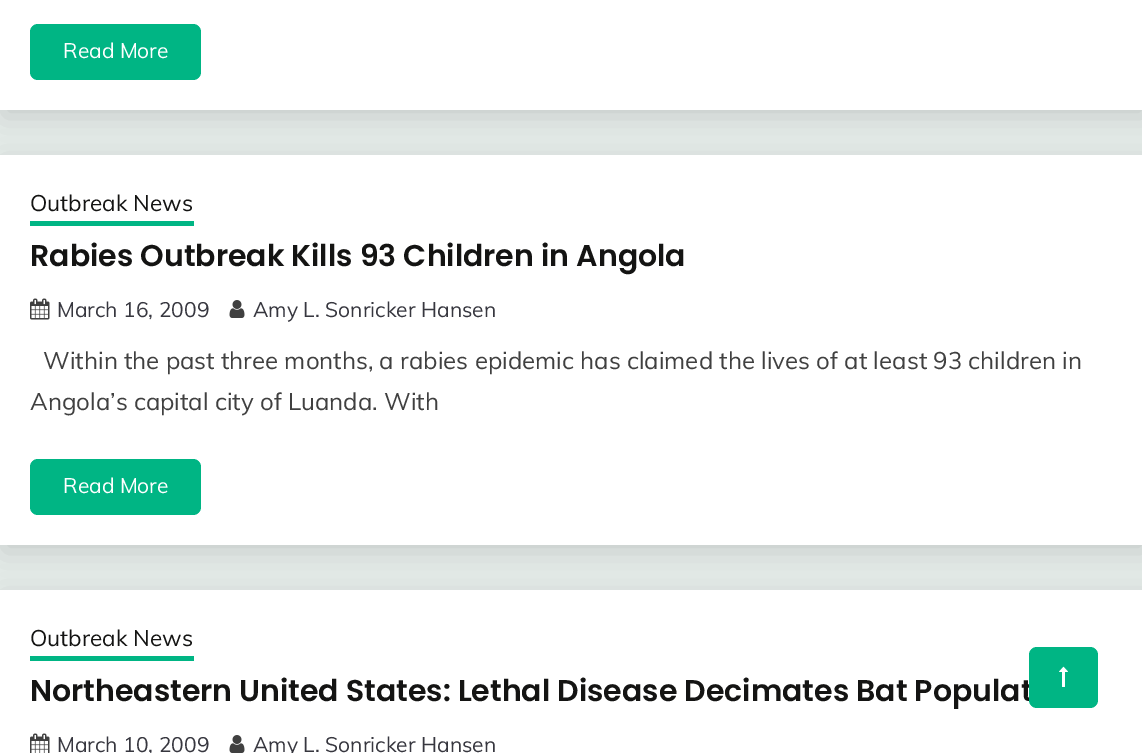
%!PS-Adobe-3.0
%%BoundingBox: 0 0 1142 753
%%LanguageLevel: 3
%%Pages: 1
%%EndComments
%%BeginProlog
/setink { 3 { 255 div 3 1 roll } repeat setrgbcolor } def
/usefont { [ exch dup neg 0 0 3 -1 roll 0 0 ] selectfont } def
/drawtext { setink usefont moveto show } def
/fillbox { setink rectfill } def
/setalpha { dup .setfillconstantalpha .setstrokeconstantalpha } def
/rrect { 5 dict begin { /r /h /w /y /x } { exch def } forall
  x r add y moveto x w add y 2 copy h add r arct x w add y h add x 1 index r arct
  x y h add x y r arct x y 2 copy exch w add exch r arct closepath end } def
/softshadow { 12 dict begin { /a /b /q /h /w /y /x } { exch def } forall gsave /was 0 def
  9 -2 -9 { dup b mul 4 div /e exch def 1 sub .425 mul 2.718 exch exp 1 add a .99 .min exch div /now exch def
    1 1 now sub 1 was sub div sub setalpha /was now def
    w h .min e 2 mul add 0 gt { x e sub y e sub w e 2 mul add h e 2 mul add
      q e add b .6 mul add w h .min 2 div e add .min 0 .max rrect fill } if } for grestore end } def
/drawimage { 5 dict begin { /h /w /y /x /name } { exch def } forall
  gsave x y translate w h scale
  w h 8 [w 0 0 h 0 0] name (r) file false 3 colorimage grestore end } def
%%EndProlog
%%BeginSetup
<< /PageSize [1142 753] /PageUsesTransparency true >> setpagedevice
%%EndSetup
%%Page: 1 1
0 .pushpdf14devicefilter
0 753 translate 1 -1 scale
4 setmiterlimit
0 0 1142 753 229 236 233 fillbox
0 0 0 setink
3 -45 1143 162 0 15 0.14 softshadow
0 0 1142 110 255 255 255 fillbox
0 181 132 setink
30 24 171 56 8 rrect fill
(Read More) 63 58 /Muli-Regular 21 255 255 255 drawtext
0 0 0 setink
3 162 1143 390 0 15 0.14 softshadow
0 155 1142 390 255 255 255 fillbox
(Outbreak News) 30 211 /Muli-Regular 22.5 20 20 19 drawtext
30 221 164 5 0 181 132 fillbox
(Rabies Outbreak Kills 93 Children in Angola) 30 266 /Poppins-SemiBold 30 20 20 19 drawtext
(assets/img1.rgb) 30 298 20 22 drawimage
(March 16, 2009) 57 317 /Muli-Regular 21 55 55 63 drawtext
(assets/img2.rgb) 229 300 16 18 drawimage
(Amy L. Sonricker Hansen) 253 317 /Muli-Regular 21 55 55 63 drawtext
(Within the past three months, a rabies epidemic has claimed the lives of at least 93 children in) 43 369 /Muli-Regular 24 64 64 64 drawtext
(Angola’s capital city of Luanda. With) 30 410 /Muli-Regular 24 64 64 64 drawtext
0 181 132 setink
30 459 171 56 8 rrect fill
(Read More) 63 493 /Muli-Regular 21 255 255 255 drawtext
0 0 0 setink
3 597 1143 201 0 15 0.14 softshadow
0 590 1142 163 255 255 255 fillbox
(Outbreak News) 30 646 /Muli-Regular 22.5 20 20 19 drawtext
30 656 164 5 0 181 132 fillbox
(Northeastern United States: Lethal Disease Decimates Bat Populat) 30 701 /Poppins-SemiBold 30 20 20 19 drawtext
(assets/img3.rgb) 30 733 20 20 drawimage
(March 10, 2009) 57 752 /Muli-Regular 21 55 55 63 drawtext
(assets/img2.rgb) 229 735 16 18 drawimage
(Amy L. Sonricker Hansen) 253 752 /Muli-Regular 21 55 55 63 drawtext
0 181 132 setink
1029 647 69 61 8 rrect fill
(assets/img4.rgb) 1059 666 9 21 drawimage
.poppdf14devicefilter showpage
%%EOF
